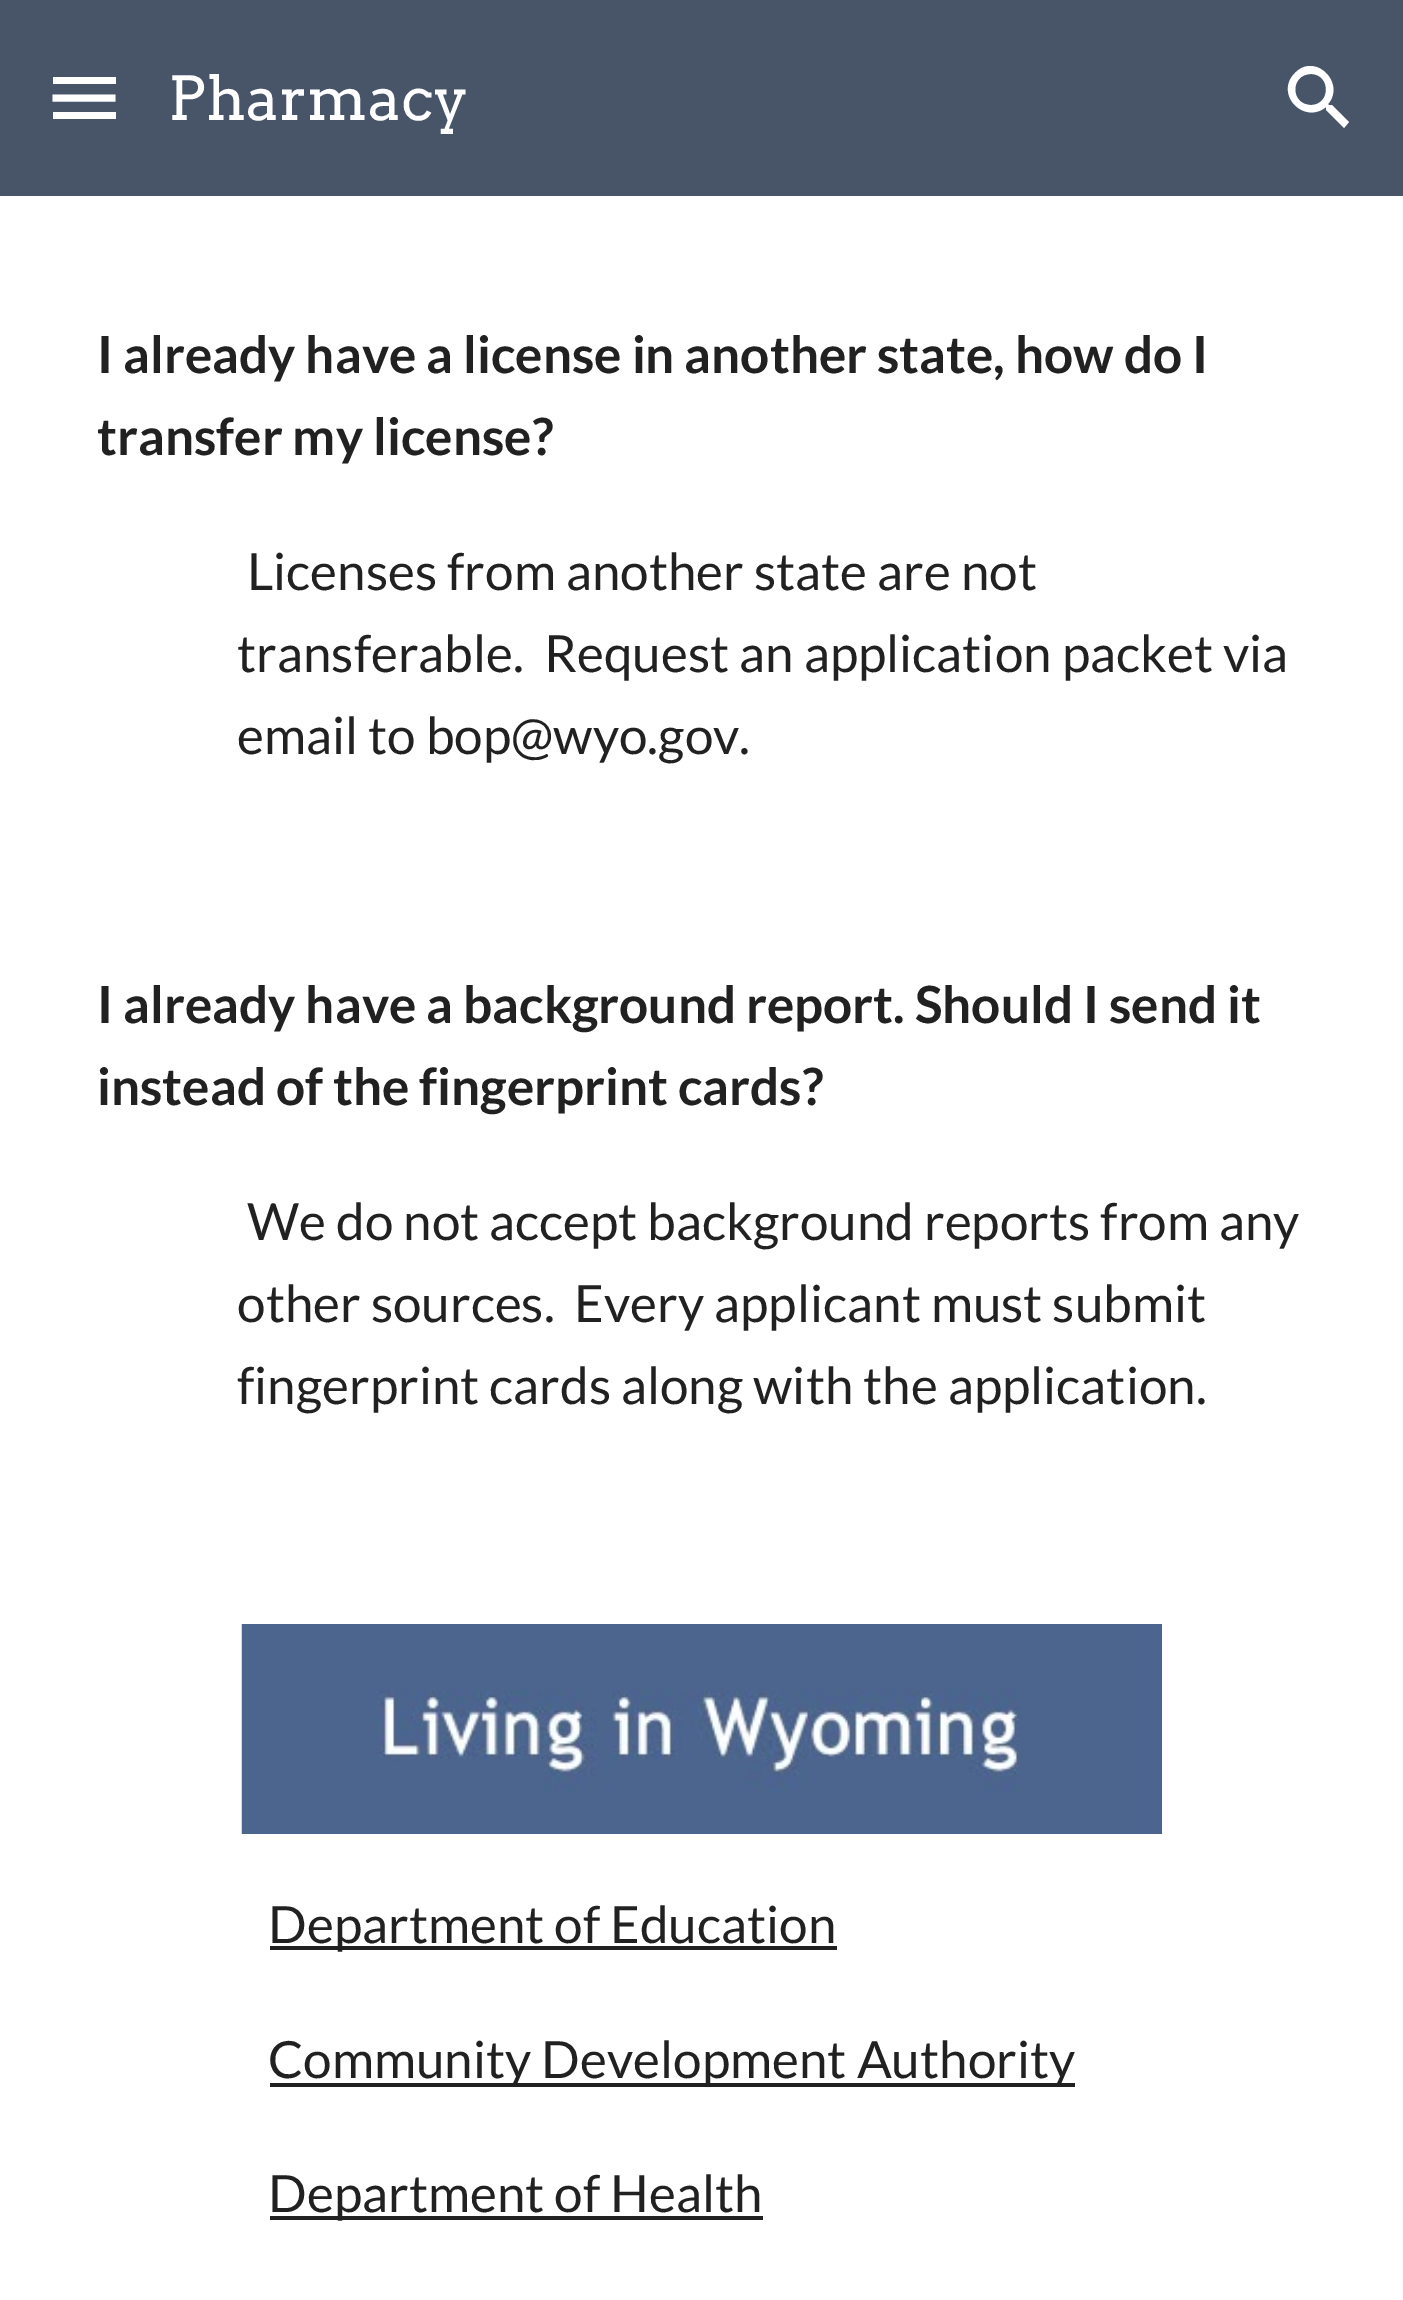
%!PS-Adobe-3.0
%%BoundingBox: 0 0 1403 2300
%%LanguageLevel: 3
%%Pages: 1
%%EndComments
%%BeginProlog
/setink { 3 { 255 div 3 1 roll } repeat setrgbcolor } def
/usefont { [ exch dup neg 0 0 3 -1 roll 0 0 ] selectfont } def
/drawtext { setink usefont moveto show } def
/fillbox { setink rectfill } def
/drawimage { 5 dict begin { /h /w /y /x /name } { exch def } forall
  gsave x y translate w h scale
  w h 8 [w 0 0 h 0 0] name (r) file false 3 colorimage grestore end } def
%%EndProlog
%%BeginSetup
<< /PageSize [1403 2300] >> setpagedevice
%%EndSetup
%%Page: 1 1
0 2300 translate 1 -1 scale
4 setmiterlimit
0 0 1403 2300 255 255 255 fillbox
0 0 1403 196 72 85 105 fillbox
53 77 63 7 255 255 255 fillbox
7 setlinewidth
52.5 98 moveto 115.5 98 lineto stroke
53 112 63 7 255 255 255 fillbox
(Pharmacy) 168 120 /Arvo-Regular 60.5 255 255 255 drawtext
1332 105 moveto 1329 105 lineto 1328 104 lineto 1346 83 1315 52 1295 73 curveto 1274 94 1304 125 1326 107 curveto 1326 110 lineto 1344 128 lineto 1349 122 lineto closepath 1311 105 moveto 1290 105 1290 74 1311 74 curveto 1331 74 1331 105 1311 105 curveto closepath fill
(I already have a license in another state, how do I) 97 373 /Lato-Bold 51.3 33 33 33 drawtext
(transfer my license?) 97 455 /Lato-Bold 51.3 33 33 33 drawtext
(Licenses from another state are not) 247 590 /Lato-Regular 51.3 33 33 33 drawtext
(transferable.  Request an application packet via) 237 672 /Lato-Regular 51.3 33 33 33 drawtext
(email to bop@wyo.gov.) 237 754 /Lato-Regular 51.3 33 33 33 drawtext
(I already have a background report. Should I send it) 97 1023 /Lato-Bold 51.3 33 33 33 drawtext
(instead of the fingerprint cards?) 97 1105 /Lato-Bold 51.3 33 33 33 drawtext
(We do not accept background reports from any) 247 1240 /Lato-Regular 51.3 33 33 33 drawtext
(other sources.  Every applicant must submit) 237 1322 /Lato-Regular 51.3 33 33 33 drawtext
(fingerprint cards along with the application.) 237 1404 /Lato-Regular 51.3 33 33 33 drawtext
(assets/img1.rgb) 241 1624 921 210 drawimage
270 1946 567 4 33 33 33 fillbox
(Department of Education) 268 1943 /Lato-Regular 51.3 33 33 33 drawtext
270 2083 805 4 33 33 33 fillbox
(Community Development Authority) 268 2078 /Lato-Regular 51.3 33 33 33 drawtext
270 2216 493 4 33 33 33 fillbox
(Department of Health) 268 2212 /Lato-Regular 51.3 33 33 33 drawtext
showpage
%%EOF
